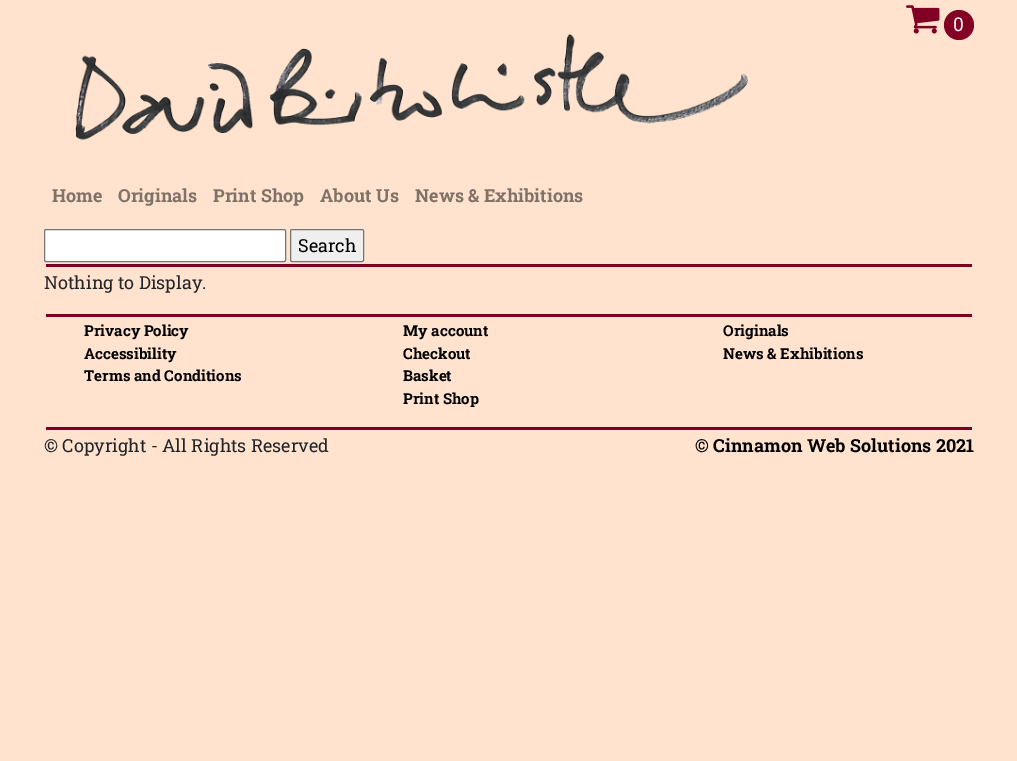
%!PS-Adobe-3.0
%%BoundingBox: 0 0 1017 761
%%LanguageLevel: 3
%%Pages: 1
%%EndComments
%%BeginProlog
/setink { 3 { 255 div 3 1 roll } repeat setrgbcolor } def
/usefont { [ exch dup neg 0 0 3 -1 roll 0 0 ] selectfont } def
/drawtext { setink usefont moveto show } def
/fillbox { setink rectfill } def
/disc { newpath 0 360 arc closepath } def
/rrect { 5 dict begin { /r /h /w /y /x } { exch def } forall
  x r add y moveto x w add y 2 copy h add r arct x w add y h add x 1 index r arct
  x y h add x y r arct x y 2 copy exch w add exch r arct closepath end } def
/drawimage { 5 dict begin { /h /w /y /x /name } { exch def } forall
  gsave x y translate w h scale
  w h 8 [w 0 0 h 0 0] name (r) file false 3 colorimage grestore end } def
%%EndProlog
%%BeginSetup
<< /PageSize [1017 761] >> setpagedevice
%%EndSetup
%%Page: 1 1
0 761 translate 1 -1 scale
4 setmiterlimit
0 0 1017 761 255 227 206 fillbox
(assets/img1.rgb) 906 5 34 29 drawimage
130 0 35 setink
959 25 15 disc fill
(0) 953 31 /RobotoSlab-Regular 19 255 255 255 drawtext
(assets/img2.rgb) 75 34 673 106 drawimage
(Home) 52 202 /RobotoSlab-Bold 18 128 114 103 drawtext
(Originals) 118 202 /RobotoSlab-Bold 18 128 114 103 drawtext
(Print Shop) 213 202 /RobotoSlab-Bold 18 128 114 103 drawtext
(About Us) 320 202 /RobotoSlab-Bold 18 128 114 103 drawtext
(News & Exhibitions) 415 202 /RobotoSlab-Bold 18 128 114 103 drawtext
255 255 255 setink
44.5 229.5 241 32 1.5 rrect gsave fill grestore
118 118 118 setink
stroke
239 239 239 setink
290.5 229.5 73 32 1.5 rrect gsave fill grestore
118 118 118 setink
stroke
(Search) 298 252 /RobotoSlab-Regular 18 0 0 0 drawtext
46 265 926 2 130 0 35 fillbox
46 264 926 1 117 0 32 fillbox
(Nothing to Display.) 44 289 /RobotoSlab-Regular 18 33 37 41 drawtext
46 315 926 2 130 0 35 fillbox
46 314 926 1 117 0 32 fillbox
(Privacy Policy) 84 336 /RobotoSlab-Bold 15 0 0 0 drawtext
(Accessibility) 84 359 /RobotoSlab-Bold 15 0 0 0 drawtext
(Terms and Conditions) 84 381 /RobotoSlab-Bold 15 0 0 0 drawtext
(My account) 403 336 /RobotoSlab-Bold 15 0 0 0 drawtext
(Checkout) 403 359 /RobotoSlab-Bold 15 0 0 0 drawtext
(Basket) 403 381 /RobotoSlab-Bold 15 0 0 0 drawtext
(Print Shop) 403 404 /RobotoSlab-Bold 15 0 0 0 drawtext
(Originals) 723 336 /RobotoSlab-Bold 15 0 0 0 drawtext
(News & Exhibitions) 723 359 /RobotoSlab-Bold 15 0 0 0 drawtext
46 428 926 2 130 0 35 fillbox
46 427 926 1 117 0 32 fillbox
(© Copyright - All Rights Reserved) 44 452 /RobotoSlab-Regular 18 33 37 41 drawtext
(© Cinnamon Web Solutions 2021) 695 452 /RobotoSlab-Bold 18 0 0 0 drawtext
showpage
%%EOF
